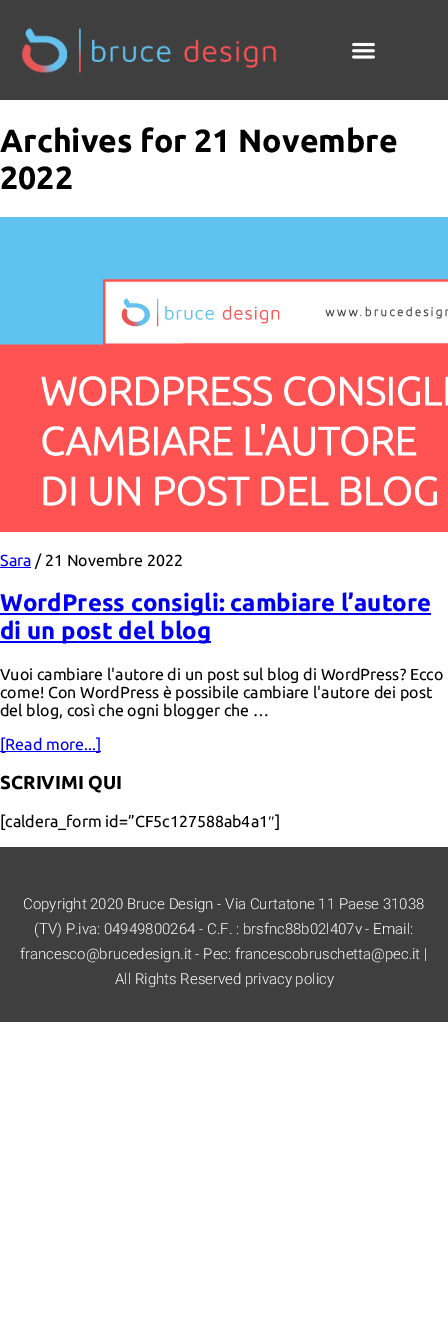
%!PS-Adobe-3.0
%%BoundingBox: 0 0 448 1336
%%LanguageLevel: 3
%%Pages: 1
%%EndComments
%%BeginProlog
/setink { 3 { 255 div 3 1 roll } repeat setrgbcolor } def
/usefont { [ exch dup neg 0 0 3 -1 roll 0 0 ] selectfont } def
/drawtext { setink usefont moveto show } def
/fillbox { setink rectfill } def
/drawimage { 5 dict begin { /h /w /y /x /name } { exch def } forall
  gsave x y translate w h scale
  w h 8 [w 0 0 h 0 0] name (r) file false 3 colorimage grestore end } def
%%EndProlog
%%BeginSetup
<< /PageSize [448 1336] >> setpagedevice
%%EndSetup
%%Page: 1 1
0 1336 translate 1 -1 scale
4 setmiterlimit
0 0 448 1336 255 255 255 fillbox
0 0 448 100 63 63 63 fillbox
(assets/img1.rgb) 21 27 256 47 drawimage
(assets/img2.rgb) 352 42 23 17 drawimage
(Archives for 21 Novembre) 0 152 /Ubuntu-Bold 32 0 0 0 drawtext
(2022) 0 189 /Ubuntu-Bold 32 0 0 0 drawtext
(assets/img3.rgb) 0 217 448 315 drawimage
(Sara) 0 566 /Ubuntu-Regular 16 0 0 238 drawtext
0 567 31 1 0 0 238 fillbox
(/ 21 Novembre 2022) 35 566 /Ubuntu-Regular 16 0 0 0 drawtext
0 613 431 2 0 0 238 fillbox
(WordPress consigli: cambiare l’autore) 0 611 /Ubuntu-Bold 24 0 0 238 drawtext
0 641 211 2 0 0 238 fillbox
(di un post del blog) 0 639 /Ubuntu-Bold 24 0 0 238 drawtext
(Vuoi cambiare l'autore di un post sul blog di WordPress? Ecco) 0 680 /Ubuntu-Regular 16 0 0 0 drawtext
(come! Con WordPress è possibile cambiare l'autore dei post) 0 698 /Ubuntu-Regular 16 0 0 0 drawtext
(del blog, così che ogni blogger che …) 0 716 /Ubuntu-Regular 16 0 0 0 drawtext
0 751 101 1 0 0 238 fillbox
([Read more...]) 0 750 /Ubuntu-Regular 16 0 0 238 drawtext
(SCRIVIMI QUI) 0 789 /Ubuntu-Bold 18.75 0 0 0 drawtext
([caldera_form id=”CF5c127588ab4a1) 0 827 /Ubuntu-Regular 16 0 0 0 drawtext
(″) 268 827 /LiberationSerif-Regular 16 0 0 0 drawtext
(]) 275 827 /Ubuntu-Regular 16 0 0 0 drawtext
0 847 448 175 63 63 63 fillbox
(Copyright 2020 Bruce Design - Via Curtatone 11 Paese 31038) 23 909 /Roboto-Light 15 255 255 255 drawtext
(\(TV\) P.iva: 04949800264 - C.F. : brsfnc88b02l407v - Email:) 34 934 /Roboto-Light 15 255 255 255 drawtext
(francesco@brucedesign.it - Pec: francescobruschetta@pec.it |) 20 959 /Roboto-Light 15 255 255 255 drawtext
(All Rights Reserved privacy policy) 115 984 /Roboto-Light 15 255 255 255 drawtext
showpage
%%EOF
